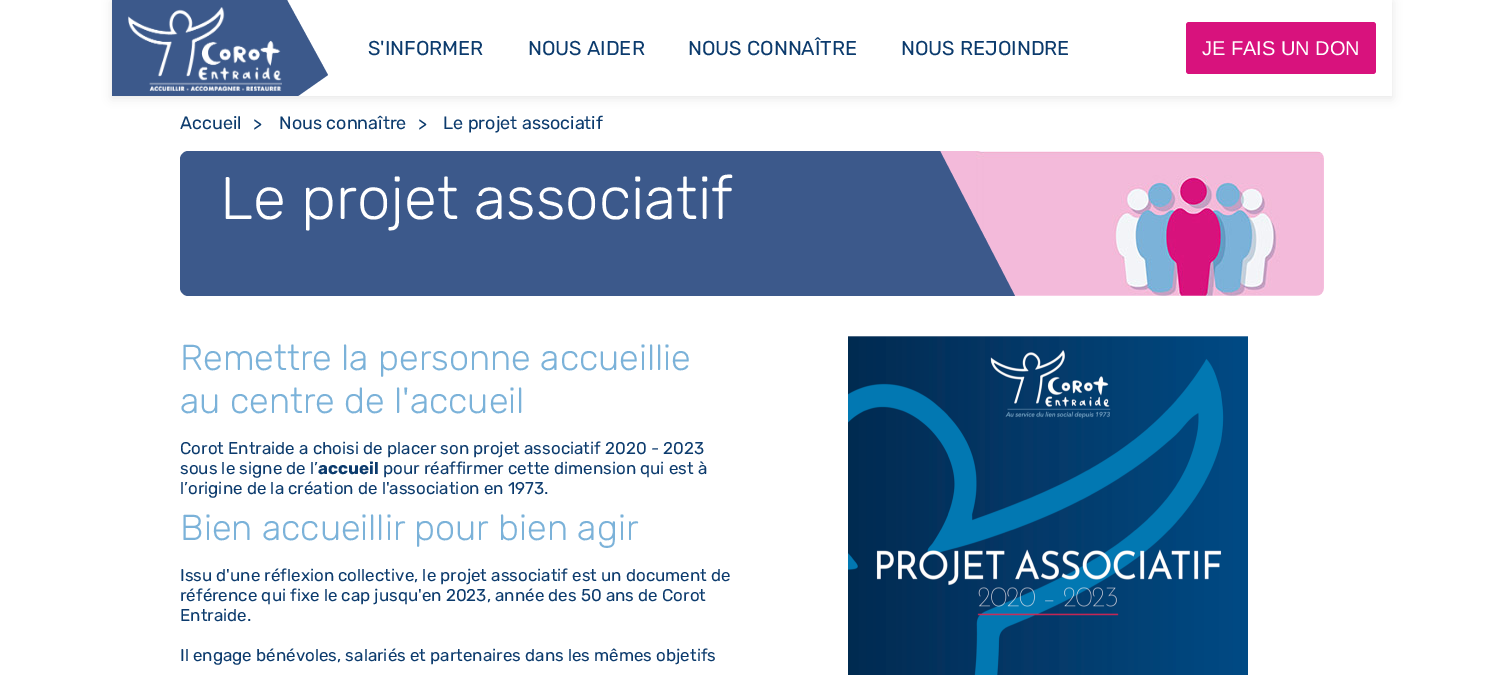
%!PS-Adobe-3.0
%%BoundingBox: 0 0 1504 675
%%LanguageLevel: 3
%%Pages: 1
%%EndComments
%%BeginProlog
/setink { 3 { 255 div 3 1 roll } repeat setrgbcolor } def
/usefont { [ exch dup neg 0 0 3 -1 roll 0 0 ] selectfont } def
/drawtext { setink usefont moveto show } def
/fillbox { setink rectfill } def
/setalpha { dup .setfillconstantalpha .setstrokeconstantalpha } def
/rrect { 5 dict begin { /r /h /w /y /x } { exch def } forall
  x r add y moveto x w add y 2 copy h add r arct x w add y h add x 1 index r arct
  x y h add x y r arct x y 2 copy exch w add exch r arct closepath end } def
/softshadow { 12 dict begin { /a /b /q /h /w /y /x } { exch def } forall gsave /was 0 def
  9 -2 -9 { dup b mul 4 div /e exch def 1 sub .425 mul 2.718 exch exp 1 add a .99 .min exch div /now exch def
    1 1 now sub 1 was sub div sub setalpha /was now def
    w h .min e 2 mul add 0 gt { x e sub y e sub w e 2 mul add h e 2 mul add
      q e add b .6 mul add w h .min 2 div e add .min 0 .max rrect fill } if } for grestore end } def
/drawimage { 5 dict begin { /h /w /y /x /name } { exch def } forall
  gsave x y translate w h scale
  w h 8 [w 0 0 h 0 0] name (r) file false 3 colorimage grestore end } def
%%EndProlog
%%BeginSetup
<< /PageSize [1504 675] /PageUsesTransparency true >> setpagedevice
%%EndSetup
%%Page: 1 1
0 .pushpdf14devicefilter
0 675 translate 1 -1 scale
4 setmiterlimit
0 0 1504 675 255 255 255 fillbox
gsave
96 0 moveto 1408 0 lineto 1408 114 lineto 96 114 lineto closepath 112 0 moveto 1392 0 lineto 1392 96 lineto 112 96 lineto closepath eoclip newpath
0 0 0 setink
112 2 1280 96 0 5 0.1 softshadow
grestore
60 89 139 setink
112 0 moveto 112 96 lineto 298 96 lineto 328 75 lineto 287 0 lineto closepath fill
(assets/img1.rgb) 128 7 154 84 drawimage
(S'INFORMER) 368 55 /Rubik-Regular 20 12 59 109 drawtext
(NOUS AIDER) 528 55 /Rubik-Regular 20 12 59 109 drawtext
(NOUS CONNAÎTRE) 688 55 /Rubik-Regular 20 12 59 109 drawtext
(NOUS REJOINDRE) 901 55 /Rubik-Regular 20 12 59 109 drawtext
216 18 125 setink
1186 22 190 52 3 rrect fill
(JE FAIS UN DON) 1202 55 /LiberationSans-Regular 20 255 255 255 drawtext
(Accueil) 180 129 /Rubik-Regular 18 12 59 109 drawtext
(>) 253 130 /Rubik-Regular 18 12 59 109 drawtext
(Nous connaître) 279 129 /Rubik-Regular 18 12 59 109 drawtext
(>) 418 130 /Rubik-Regular 18 12 59 109 drawtext
(Le projet associatif) 443 129 /Rubik-Regular 18 12 59 109 drawtext
(assets/img2.rgb) 940 151 384 145 drawimage
60 89 139 setink
188 151 moveto 184 151 180 155 180 159 curveto 180 288 lineto 180 292 184 296 188 296 curveto 1015 296 lineto 940 151 lineto closepath fill
(Le projet associatif) 220 219 /Rubik-Light 60 255 255 255 drawtext
(Remettre la personne accueillie) 180 370 /Rubik-Light 36 123 178 217 drawtext
(au centre de l'accueil) 180 413 /Rubik-Light 36 123 178 217 drawtext
(Corot Entraide a choisi de placer son projet associatif 2020 - 2023) 180 454 /Rubik-Regular 17 12 59 109 drawtext
(sous le signe de l’) 180 474 /Rubik-Regular 17 12 59 109 drawtext
(accueil) 318 474 /Rubik-Bold 17 12 59 109 drawtext
(pour réaffirmer cette dimension qui est à) 383 474 /Rubik-Regular 17 12 59 109 drawtext
(l’origine de la création de l'association en 1973.) 180 494 /Rubik-Regular 17 12 59 109 drawtext
(Bien accueillir pour bien agir) 180 540 /Rubik-Light 36 123 178 217 drawtext
(Issu d'une réflexion collective, le projet associatif est un document de) 180 581 /Rubik-Regular 17 12 59 109 drawtext
(référence qui fixe le cap jusqu'en 2023, année des 50 ans de Corot) 180 601 /Rubik-Regular 17 12 59 109 drawtext
(Entraide.) 180 621 /Rubik-Regular 17 12 59 109 drawtext
(Il engage bénévoles, salariés et partenaires dans les mêmes objetifs) 180 661 /Rubik-Regular 17 12 59 109 drawtext
(assets/img3.rgb) 848 336 400 339 drawimage
.poppdf14devicefilter showpage
%%EOF
